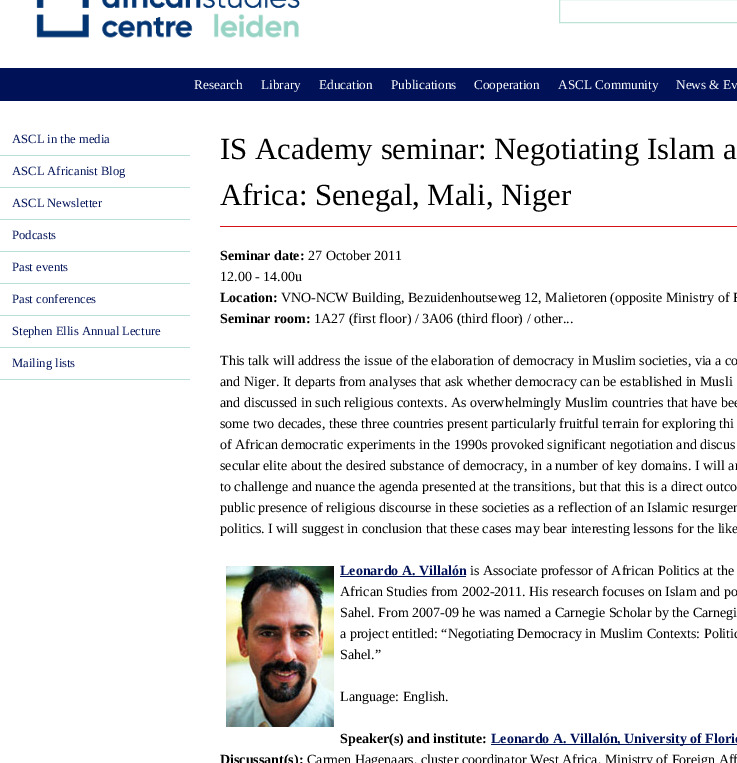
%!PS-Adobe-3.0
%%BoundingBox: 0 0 737 763
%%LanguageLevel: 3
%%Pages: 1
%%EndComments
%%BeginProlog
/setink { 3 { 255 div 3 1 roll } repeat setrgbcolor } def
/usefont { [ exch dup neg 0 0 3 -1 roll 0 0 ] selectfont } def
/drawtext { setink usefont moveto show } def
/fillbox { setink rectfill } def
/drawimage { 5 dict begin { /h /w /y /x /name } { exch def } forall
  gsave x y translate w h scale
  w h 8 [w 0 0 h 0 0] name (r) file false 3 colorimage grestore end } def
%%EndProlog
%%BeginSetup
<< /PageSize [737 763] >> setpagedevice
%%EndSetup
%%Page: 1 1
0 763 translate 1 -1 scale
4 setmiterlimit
0 0 737 763 255 255 255 fillbox
(assets/img1.rgb) 36 0 264 38 drawimage
189 227 214 setink
559.5 -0.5 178 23 rectstroke
0 68 737 33 0 17 88 fillbox
(Research) 194 89 /LiberationSerif-Regular 13.25 255 255 255 drawtext
(Library) 261 89 /LiberationSerif-Regular 13.25 255 255 255 drawtext
(Education) 319 89 /LiberationSerif-Regular 13.25 255 255 255 drawtext
(Publications) 391 89 /LiberationSerif-Regular 13.25 255 255 255 drawtext
(Cooperation) 474 89 /LiberationSerif-Regular 13.25 255 255 255 drawtext
(ASCL Community) 558 89 /LiberationSerif-Regular 13.25 255 255 255 drawtext
(News & Ev) 676 89 /LiberationSerif-Regular 13.25 255 255 255 drawtext
0 155 190 1 186 223 215 fillbox
(ASCL in the media) 12 143 /LiberationSerif-Regular 12.6 0 17 88 drawtext
0 187 190 1 186 223 215 fillbox
(ASCL Africanist Blog) 12 175 /LiberationSerif-Regular 12.6 0 17 88 drawtext
0 219 190 1 186 223 215 fillbox
(ASCL Newsletter) 12 207 /LiberationSerif-Regular 12.6 0 17 88 drawtext
0 251 190 1 186 223 215 fillbox
(Podcasts) 12 239 /LiberationSerif-Regular 12.6 0 17 88 drawtext
0 283 190 1 186 223 215 fillbox
(Past events) 12 271 /LiberationSerif-Regular 12.6 0 17 88 drawtext
0 315 190 1 186 223 215 fillbox
(Past conferences) 12 303 /LiberationSerif-Regular 12.6 0 17 88 drawtext
0 347 190 1 186 223 215 fillbox
(Stephen Ellis Annual Lecture) 12 335 /LiberationSerif-Regular 12.6 0 17 88 drawtext
0 379 190 1 186 223 215 fillbox
(Mailing lists) 12 367 /LiberationSerif-Regular 12.6 0 17 88 drawtext
220 226 517 1 215 16 22 fillbox
(IS Academy seminar: Negotiating Islam a) 220 159 /LiberationSerif-Regular 30.75 0 0 0 drawtext
(Africa: Senegal, Mali, Niger) 220 205 /LiberationSerif-Regular 30.75 0 0 0 drawtext
(Seminar date:) 220 260 /LiberationSerif-Bold 14 0 0 0 drawtext
(27 October 2011) 308 260 /LiberationSerif-Regular 14 0 0 0 drawtext
(12.00 - 14.00u) 220 281 /LiberationSerif-Regular 14 0 0 0 drawtext
(Location:) 220 302 /LiberationSerif-Bold 14 0 0 0 drawtext
(VNO-NCW Building, Bezuidenhoutseweg 12, Malietoren \(opposite Ministry of F) 281 302 /LiberationSerif-Regular 14 0 0 0 drawtext
(Seminar room:) 220 323 /LiberationSerif-Bold 14 0 0 0 drawtext
(1A27 \(first floor\) / 3A06 \(third floor\) / other...) 314 323 /LiberationSerif-Regular 14 0 0 0 drawtext
(This talk will address the issue of the elaboration of democracy in Muslim societies, via a co) 220 365 /LiberationSerif-Regular 14 0 0 0 drawtext
(and Niger. It departs from analyses that ask whether democracy can be established in Musli) 220 386 /LiberationSerif-Regular 14 0 0 0 drawtext
(and discussed in such religious contexts. As overwhelmingly Muslim countries that have bee) 220 407 /LiberationSerif-Regular 14 0 0 0 drawtext
(some two decades, these three countries present particularly fruitful terrain for exploring thi) 220 428 /LiberationSerif-Regular 14 0 0 0 drawtext
(of African democratic experiments in the 1990s provoked significant negotiation and discus) 220 449 /LiberationSerif-Regular 14 0 0 0 drawtext
(secular elite about the desired substance of democracy, in a number of key domains. I will ar) 220 470 /LiberationSerif-Regular 14 0 0 0 drawtext
(to challenge and nuance the agenda presented at the transitions, but that this is a direct outco) 220 491 /LiberationSerif-Regular 14 0 0 0 drawtext
(public presence of religious discourse in these societies as a reflection of an Islamic resurgen) 220 512 /LiberationSerif-Regular 14 0 0 0 drawtext
(politics. I will suggest in conclusion that these cases may bear interesting lessons for the like) 220 533 /LiberationSerif-Regular 14 0 0 0 drawtext
(assets/img2.rgb) 226 566 108 161 drawimage
(Leonardo A. Villalón) 340 575 /LiberationSerif-Bold 14 0 17 88 drawtext
340 576 126 1 0 17 88 fillbox
(is Associate professor of African Politics at the) 470 575 /LiberationSerif-Regular 14 0 0 0 drawtext
(African Studies from 2002-2011. His research focuses on Islam and po) 340 596 /LiberationSerif-Regular 14 0 0 0 drawtext
(Sahel. From 2007-09 he was named a Carnegie Scholar by the Carnegi) 340 617 /LiberationSerif-Regular 14 0 0 0 drawtext
(a project entitled: “Negotiating Democracy in Muslim Contexts: Politic) 340 638 /LiberationSerif-Regular 14 0 0 0 drawtext
(Sahel.”) 340 659 /LiberationSerif-Regular 14 0 0 0 drawtext
(Language: English.) 340 701 /LiberationSerif-Regular 14 0 0 0 drawtext
(Speaker\(s\) and institute:) 340 743 /LiberationSerif-Bold 14 0 0 0 drawtext
491 744 246 1 0 17 88 fillbox
(Leonardo A. Villalón, University of Florid) 491 743 /LiberationSerif-Bold 14 0 17 88 drawtext
(Discussant\(s\):) 220 764 /LiberationSerif-Bold 14 0 0 0 drawtext
(Carmen Hagenaars, cluster coordinator West Africa, Ministry of Foreign Aff) 307 764 /LiberationSerif-Regular 14 0 0 0 drawtext
showpage
%%EOF
